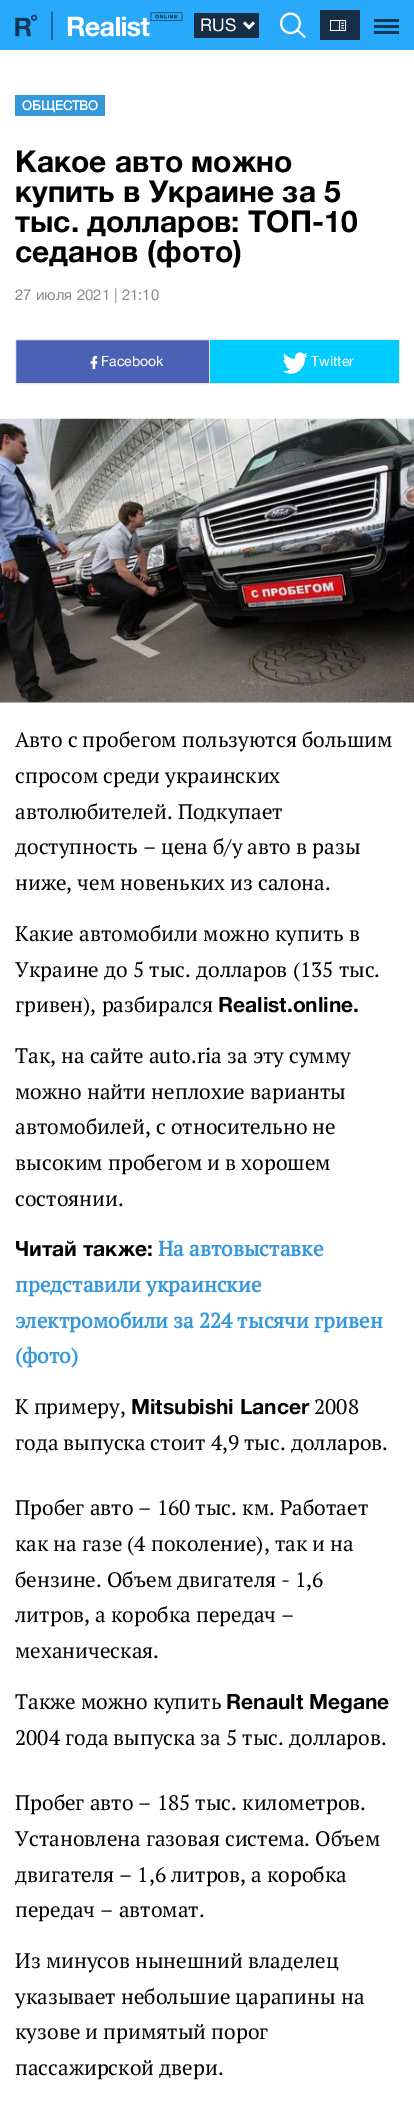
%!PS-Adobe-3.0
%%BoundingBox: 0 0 414 2103
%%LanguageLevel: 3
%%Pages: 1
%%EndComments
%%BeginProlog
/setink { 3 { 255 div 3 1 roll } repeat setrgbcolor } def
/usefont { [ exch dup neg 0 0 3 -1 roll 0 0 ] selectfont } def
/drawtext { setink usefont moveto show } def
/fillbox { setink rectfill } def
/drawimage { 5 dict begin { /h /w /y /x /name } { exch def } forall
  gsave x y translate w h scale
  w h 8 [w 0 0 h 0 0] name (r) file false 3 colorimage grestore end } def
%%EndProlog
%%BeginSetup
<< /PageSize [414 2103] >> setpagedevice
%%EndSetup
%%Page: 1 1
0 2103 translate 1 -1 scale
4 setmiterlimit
0 0 414 2103 255 255 255 fillbox
0 0 414 50 40 169 250 fillbox
(assets/img1.rgb) 15 11 168 29 drawimage
194 13 65 25 23 45 69 fillbox
255 255 255 setink
2.5 setlinewidth
244 22.5 moveto 249 27.5 lineto 254 22.5 lineto stroke
(RUS) 200 31 /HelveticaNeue-Regular 17.5 255 255 255 drawtext
(assets/img2.rgb) 280 12 26 26 drawimage
320 10 40 30 23 45 69 fillbox
(assets/img3.rgb) 330 20 16 11 drawimage
374 25 25 3 11 54 89 fillbox
374 19 25 3 11 54 89 fillbox
374 31 25 3 11 54 89 fillbox
15 95 90 21 52 152 219 fillbox
(ОБЩЕСТВО) 22 110 /HelveticaNeue-Bold 13 255 255 255 drawtext
(Какое авто можно) 15 172 /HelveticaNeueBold-Bold 30 0 0 0 drawtext
(купить в Украине за 5) 15 202 /HelveticaNeueBold-Bold 30 0 0 0 drawtext
(тыс. долларов: ТОП-10) 15 232 /HelveticaNeueBold-Bold 30 0 0 0 drawtext
(седанов \(фото\)) 15 262 /HelveticaNeueBold-Bold 30 0 0 0 drawtext
(27 июля 2021 | 21:10) 15 300 /HelveticaNeue-Regular 15 140 140 140 drawtext
74 97 182 setink
15.5 339.5 moveto 209.5 339.5 lineto 209.5 383.5 lineto 15.5 383.5 lineto closepath gsave fill grestore
232 232 232 setink
1 setlinewidth
stroke
(assets/img4.rgb) 90 355 8 15 drawimage
(Facebook) 101 366 /HelveticaNeue-Regular 14 255 255 255 drawtext
210 340 189 43 0 204 255 fillbox
210 339 190 1 232 232 232 fillbox
399 339 1 45 232 232 232 fillbox
210 383 190 1 232 232 232 fillbox
(assets/img5.rgb) 283 352 25 22 drawimage
(Twitter) 311 366 /HelveticaNeue-Regular 14 255 255 255 drawtext
(assets/img6.rgb) 0 418 414 285 drawimage
(Авто с пробегом пользуются большим) 15 747 /PTSerif-Regular 21 0 0 0 drawtext
(спросом среди украинских) 15 783 /PTSerif-Regular 21 0 0 0 drawtext
(автолюбителей. Подкупает) 15 819 /PTSerif-Regular 21 0 0 0 drawtext
(доступность – цена б/у авто в разы) 15 854 /PTSerif-Regular 21 0 0 0 drawtext
(ниже, чем новеньких из салона.) 15 890 /PTSerif-Regular 21 0 0 0 drawtext
(Какие автомобили можно купить в) 15 941 /PTSerif-Regular 21 0 0 0 drawtext
(Украине до 5 тыс. долларов \(135 тыс.) 15 977 /PTSerif-Regular 21 0 0 0 drawtext
(гривен\), разбирался) 15 1012 /PTSerif-Regular 21 0 0 0 drawtext
(Realist.online.) 218 1012 /HelveticaNeueBold-Bold 21 0 0 0 drawtext
(Так, на сайте auto.ria за эту сумму) 15 1063 /PTSerif-Regular 21 0 0 0 drawtext
(можно найти неплохие варианты) 15 1099 /PTSerif-Regular 21 0 0 0 drawtext
(автомобилей, с относительно не) 15 1134 /PTSerif-Regular 21 0 0 0 drawtext
(высоким пробегом и в хорошем) 15 1170 /PTSerif-Regular 21 0 0 0 drawtext
(состоянии.) 15 1206 /PTSerif-Regular 21 0 0 0 drawtext
(Читай также:) 15 1256 /HelveticaNeueBold-Bold 21 0 0 0 drawtext
(На автовыставке) 158 1256 /PTSerif-Bold 21 52 152 219 drawtext
(представили украинские) 15 1292 /PTSerif-Bold 21 52 152 219 drawtext
(электромобили за 224 тысячи гривен) 15 1328 /PTSerif-Bold 21 52 152 219 drawtext
(\(фото\)) 15 1363 /PTSerif-Bold 21 52 152 219 drawtext
(К примеру,) 15 1414 /PTSerif-Regular 21 0 0 0 drawtext
(Mitsubishi Lancer) 131 1414 /HelveticaNeueBold-Bold 21 0 0 0 drawtext
(2008) 314 1414 /PTSerif-Regular 21 0 0 0 drawtext
(года выпуска стоит 4,9 тыс. долларов.) 15 1450 /PTSerif-Regular 21 0 0 0 drawtext
(Пробег авто – 160 тыс. км. Работает) 15 1515 /PTSerif-Regular 21 0 0 0 drawtext
(как на газе \(4 поколение\), так и на) 15 1551 /PTSerif-Regular 21 0 0 0 drawtext
(бензине. Объем двигателя - 1,6) 15 1587 /PTSerif-Regular 21 0 0 0 drawtext
(литров, а коробка передач –) 15 1622 /PTSerif-Regular 21 0 0 0 drawtext
(механическая.) 15 1658 /PTSerif-Regular 21 0 0 0 drawtext
(Также можно купить) 15 1709 /PTSerif-Regular 21 0 0 0 drawtext
(Renault Megane) 226 1709 /HelveticaNeueBold-Bold 21 0 0 0 drawtext
(2004 года выпуска за 5 тыс. долларов.) 15 1745 /PTSerif-Regular 21 0 0 0 drawtext
(Пробег авто – 185 тыс. километров.) 15 1810 /PTSerif-Regular 21 0 0 0 drawtext
(Установлена газовая система. Объем) 15 1846 /PTSerif-Regular 21 0 0 0 drawtext
(двигателя – 1,6 литров, а коробка) 15 1882 /PTSerif-Regular 21 0 0 0 drawtext
(передач – автомат.) 15 1917 /PTSerif-Regular 21 0 0 0 drawtext
(Из минусов нынешний владелец) 15 1968 /PTSerif-Regular 21 0 0 0 drawtext
(указывает небольшие царапины на) 15 2004 /PTSerif-Regular 21 0 0 0 drawtext
(кузове и примятый порог) 15 2039 /PTSerif-Regular 21 0 0 0 drawtext
(пассажирской двери.) 15 2075 /PTSerif-Regular 21 0 0 0 drawtext
showpage
%%EOF
